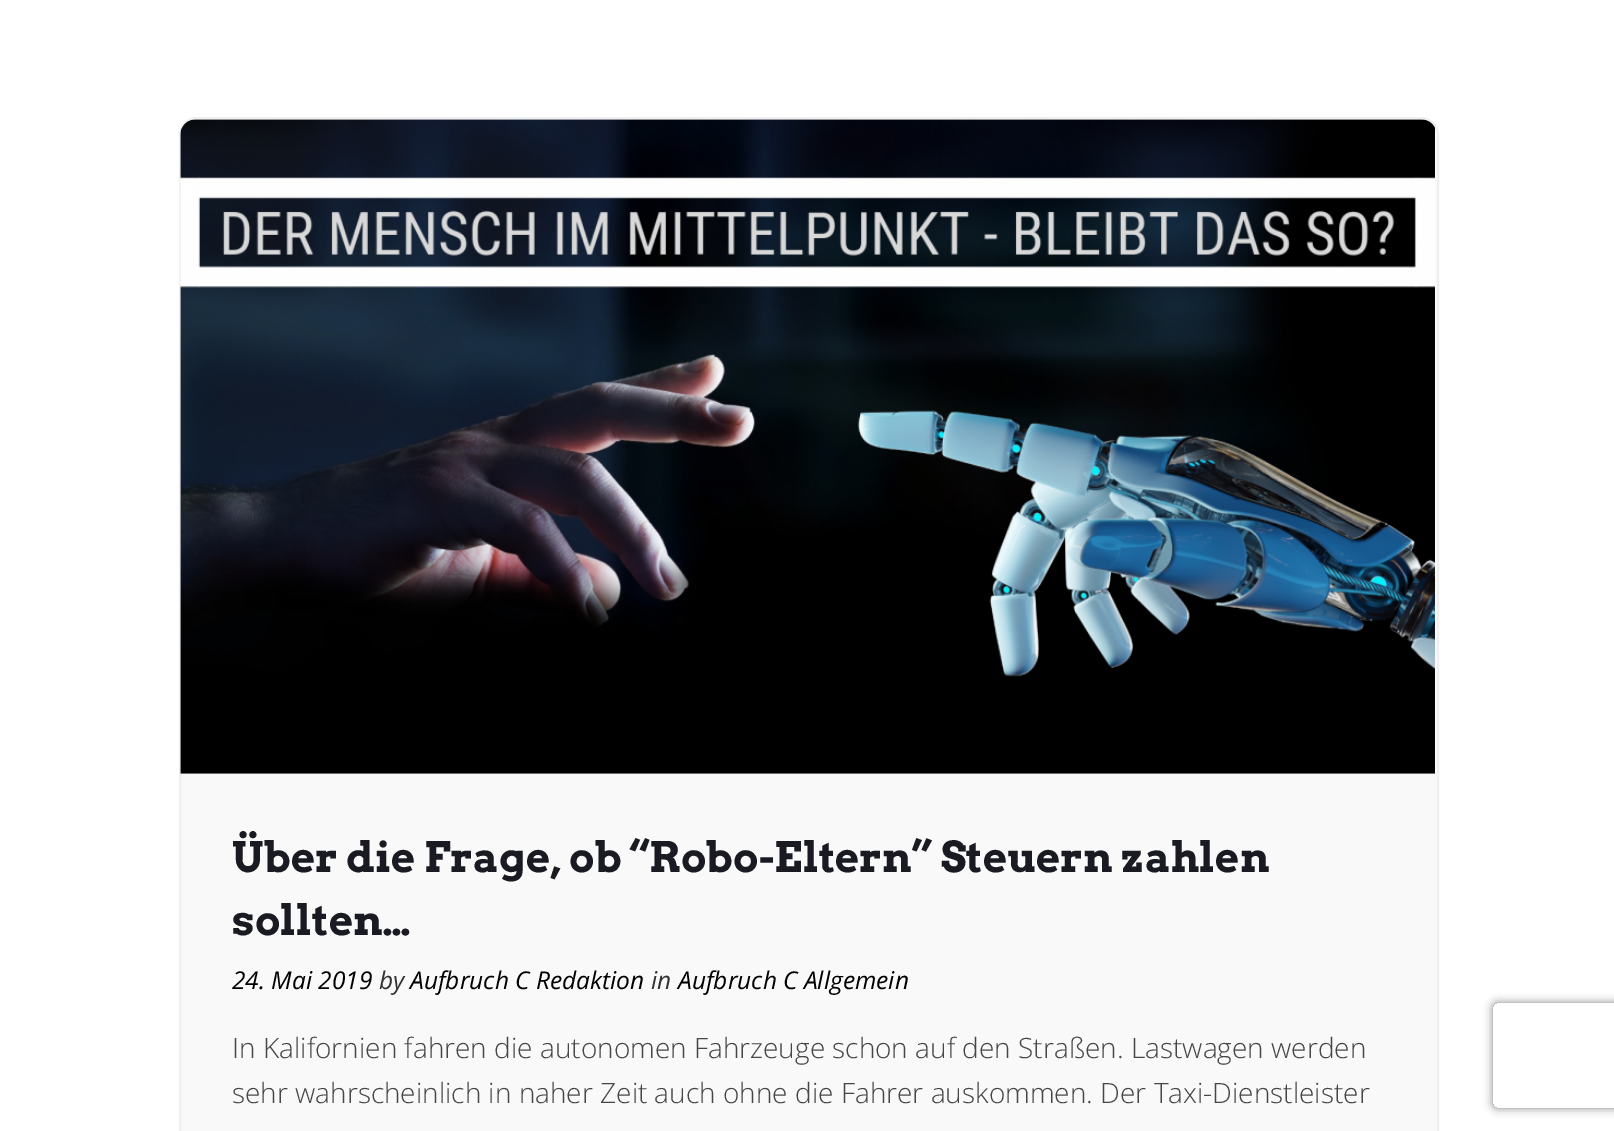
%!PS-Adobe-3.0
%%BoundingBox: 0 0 1614 1131
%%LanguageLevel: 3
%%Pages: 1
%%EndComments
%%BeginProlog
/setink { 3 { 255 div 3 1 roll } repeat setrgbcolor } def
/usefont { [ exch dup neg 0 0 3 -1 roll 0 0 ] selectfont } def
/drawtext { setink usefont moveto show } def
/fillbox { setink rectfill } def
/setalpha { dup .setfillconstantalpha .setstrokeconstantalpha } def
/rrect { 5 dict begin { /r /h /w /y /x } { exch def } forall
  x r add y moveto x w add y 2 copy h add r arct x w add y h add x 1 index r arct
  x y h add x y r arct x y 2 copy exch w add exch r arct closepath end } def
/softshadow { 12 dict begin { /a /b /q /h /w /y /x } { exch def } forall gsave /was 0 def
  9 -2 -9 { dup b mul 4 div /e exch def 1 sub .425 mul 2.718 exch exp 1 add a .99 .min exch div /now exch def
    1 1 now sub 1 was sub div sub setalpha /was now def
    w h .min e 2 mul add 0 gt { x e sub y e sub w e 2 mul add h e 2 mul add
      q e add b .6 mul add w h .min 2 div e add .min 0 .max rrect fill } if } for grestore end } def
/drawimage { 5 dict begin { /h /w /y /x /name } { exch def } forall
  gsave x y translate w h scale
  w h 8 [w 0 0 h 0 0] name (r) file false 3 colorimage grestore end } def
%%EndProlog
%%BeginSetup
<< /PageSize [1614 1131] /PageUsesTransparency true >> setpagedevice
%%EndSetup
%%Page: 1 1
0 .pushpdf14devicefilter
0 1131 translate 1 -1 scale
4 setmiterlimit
0 0 1614 1131 255 255 255 fillbox
249 249 249 setink
180 118 1258 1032 17 rrect gsave fill grestore
239 239 239 setink
2 setlinewidth
stroke
(assets/img1.rgb) 180 119 1255 655 drawimage
(Über die Frage, ob “Robo-Eltern” Steuern zahlen) 232 872 /Arvo-Bold 42 26 27 34 drawtext
(sollten…) 232 935 /Arvo-Bold 42 26 27 34 drawtext
(24. Mai 2019) 232 989 /OpenSans-Italic 24.5 0 0 0 drawtext
(by) 379 989 /OpenSans-Italic 24.5 51 51 51 drawtext
(Aufbruch C Redaktion) 410 989 /OpenSans-Italic 24.5 0 0 0 drawtext
(in) 651 989 /OpenSans-Italic 24.5 51 51 51 drawtext
(Aufbruch C Allgemein) 678 989 /OpenSans-Italic 24.5 0 0 0 drawtext
(In Kalifornien fahren die autonomen Fahrzeuge schon auf den Straßen. Lastwagen werden) 232 1058 /OpenSans-Light 28 69 70 70 drawtext
(sehr wahrscheinlich in naher Zeit auch ohne die Fahrer auskommen. Der Taxi-Dienstleister) 232 1103 /OpenSans-Light 28 69 70 70 drawtext
gsave
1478 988 moveto 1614 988 lineto 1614 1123 lineto 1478 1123 lineto closepath 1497 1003 moveto 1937 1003 lineto 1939 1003 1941 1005 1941 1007 curveto 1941 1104 lineto 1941 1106 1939 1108 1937 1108 curveto 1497 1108 lineto 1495 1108 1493 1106 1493 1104 curveto 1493 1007 lineto 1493 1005 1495 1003 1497 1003 curveto closepath eoclip newpath
128 128 128 setink
1493 1003 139 105 4 4.5 1 softshadow
grestore
.poppdf14devicefilter showpage
%%EOF
